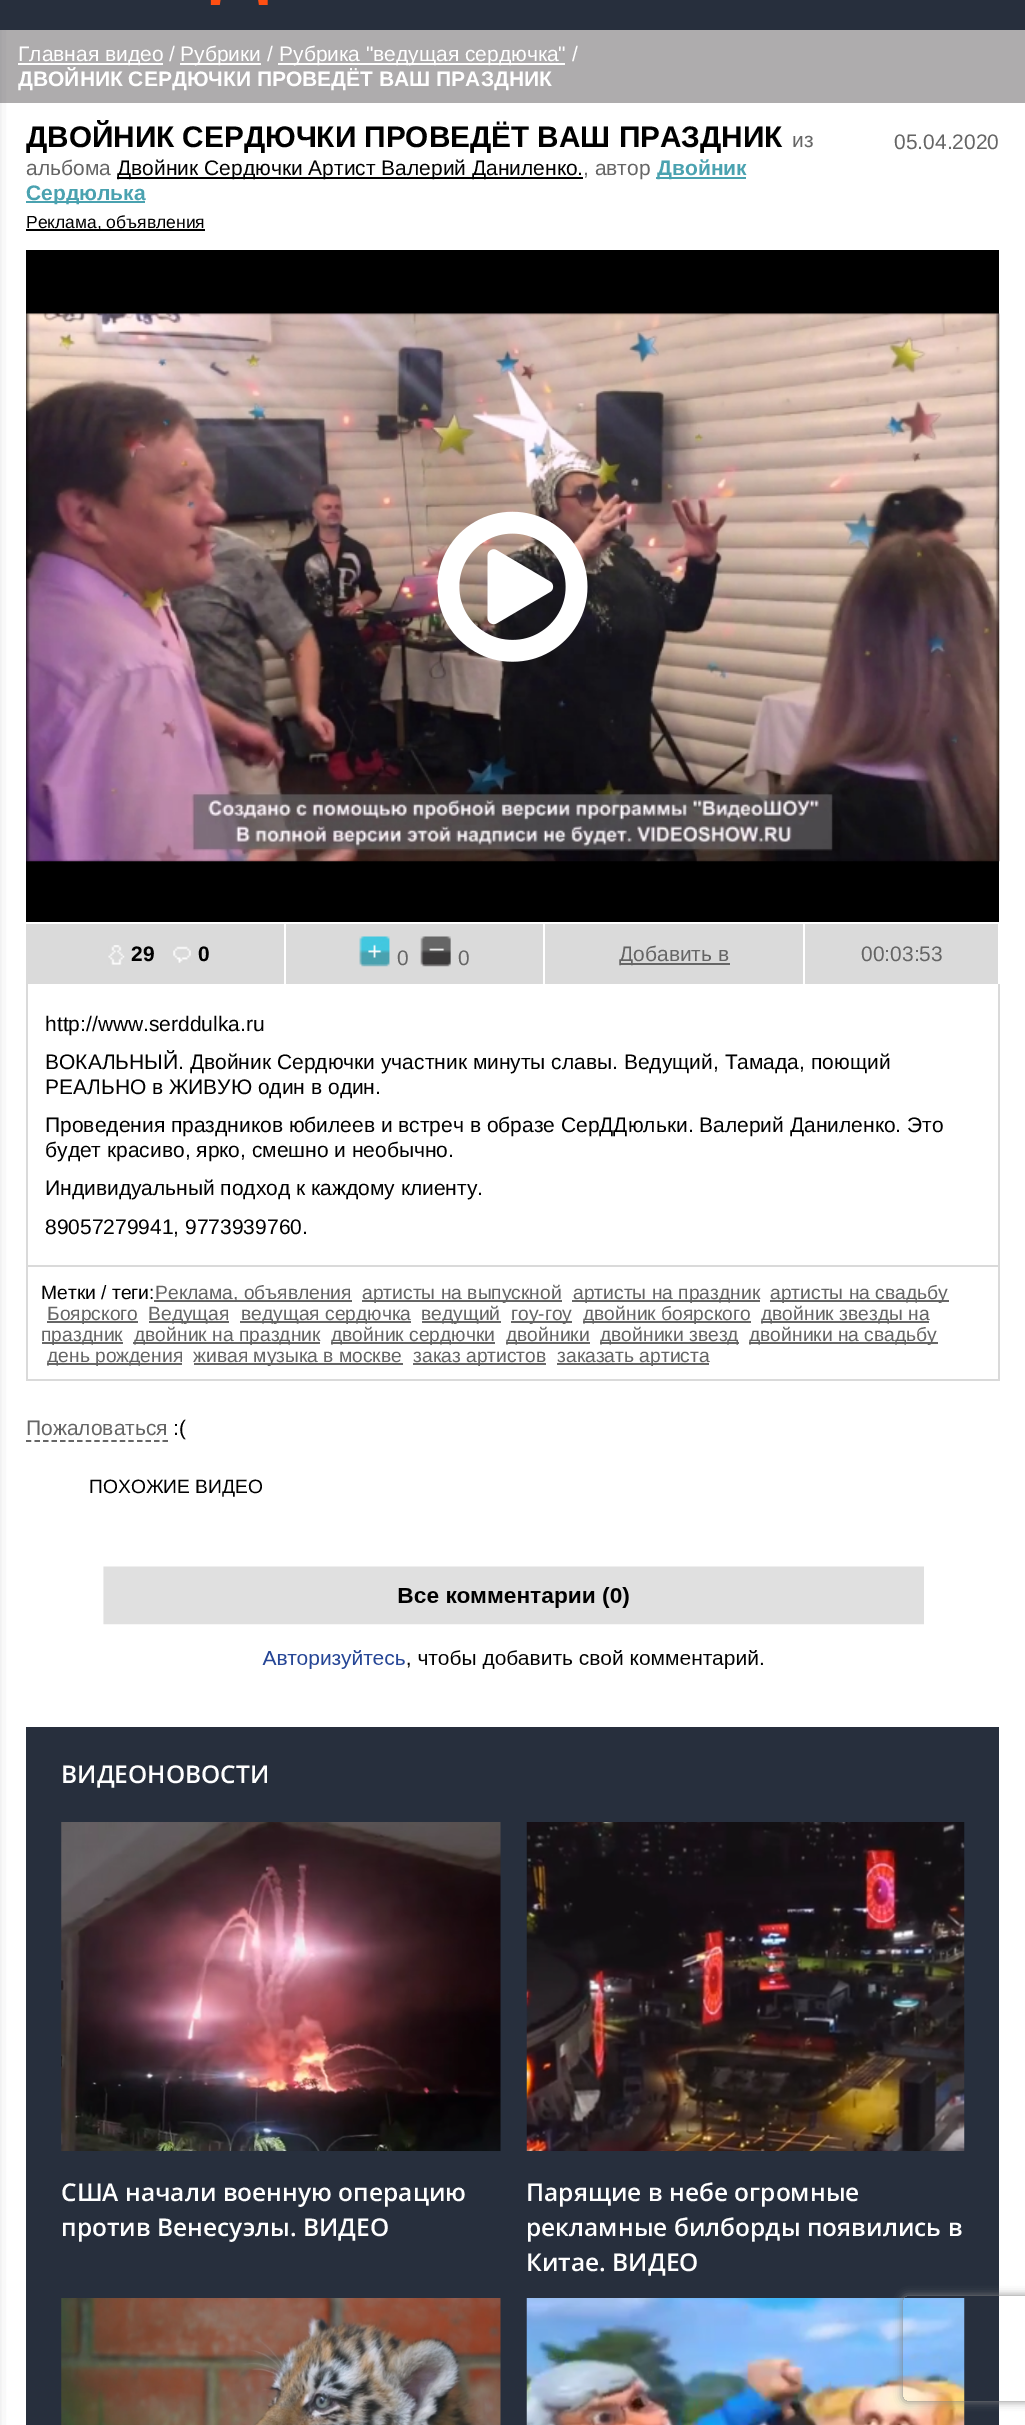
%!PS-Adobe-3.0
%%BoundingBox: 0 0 1025 2425
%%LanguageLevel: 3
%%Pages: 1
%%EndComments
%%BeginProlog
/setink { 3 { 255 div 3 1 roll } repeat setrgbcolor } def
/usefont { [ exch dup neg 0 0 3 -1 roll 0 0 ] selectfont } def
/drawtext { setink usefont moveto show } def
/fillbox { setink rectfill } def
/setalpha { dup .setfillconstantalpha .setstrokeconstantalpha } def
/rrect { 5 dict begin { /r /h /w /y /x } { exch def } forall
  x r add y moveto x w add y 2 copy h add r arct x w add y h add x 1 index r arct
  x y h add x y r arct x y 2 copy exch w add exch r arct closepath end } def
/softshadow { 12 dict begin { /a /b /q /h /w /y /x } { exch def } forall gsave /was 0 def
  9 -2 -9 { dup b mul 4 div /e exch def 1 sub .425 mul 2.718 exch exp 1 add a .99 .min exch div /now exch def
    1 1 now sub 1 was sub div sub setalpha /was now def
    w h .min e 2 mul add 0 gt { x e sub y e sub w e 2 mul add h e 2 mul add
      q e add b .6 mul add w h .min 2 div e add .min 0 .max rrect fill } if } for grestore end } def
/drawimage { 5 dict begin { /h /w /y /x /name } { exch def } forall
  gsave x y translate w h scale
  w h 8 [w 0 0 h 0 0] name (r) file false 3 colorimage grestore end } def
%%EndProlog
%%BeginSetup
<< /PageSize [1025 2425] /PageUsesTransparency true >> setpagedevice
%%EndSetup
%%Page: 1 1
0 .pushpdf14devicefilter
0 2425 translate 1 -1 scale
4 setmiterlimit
0 0 1025 2425 255 255 255 fillbox
0 0 1025 30 39 47 61 fillbox
0 30 1025 73 174 172 173 fillbox
49 56 67 setink
-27 -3 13 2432 0 9 1 softshadow
(assets/img1.rgb) 210 0 58 5 drawimage
18 63 145 2 255 255 255 fillbox
(Главная видео /) 18 61 /LiberationSans-Regular 21 255 255 255 drawtext
180 63 81 2 255 255 255 fillbox
(Рубрики /) 180 61 /LiberationSans-Regular 21 255 255 255 drawtext
278 63 287 2 255 255 255 fillbox
(Рубрика "ведущая сердючка" /) 279 61 /LiberationSans-Regular 21 255 255 255 drawtext
(ДВОЙНИК СЕРДЮЧКИ ПРОВЕДЁТ ВАШ ПРАЗДНИК) 18 86 /LiberationSans-Bold 21 255 255 255 drawtext
(ДВОЙНИК СЕРДЮЧКИ ПРОВЕДЁТ ВАШ ПРАЗДНИК) 26 147 /LiberationSans-Bold 29.75 0 0 0 drawtext
(из) 792 147 /LiberationSans-Regular 21 101 101 101 drawtext
(альбома) 26 175 /LiberationSans-Regular 21 101 101 101 drawtext
117 177 466 2 0 0 0 fillbox
(Двойник Сердючки Артист Валерий Даниленко.) 117 175 /LiberationSans-Regular 21 0 0 0 drawtext
(, автор) 583 175 /LiberationSans-Regular 21 101 101 101 drawtext
656 177 90 2 74 162 176 fillbox
(Двойник) 657 175 /LiberationSans-Bold 21 74 162 176 drawtext
26 201 119 2 74 162 176 fillbox
(Сердюлька) 26 200 /LiberationSans-Bold 21 74 162 176 drawtext
(05.04.2020) 894 149 /LiberationSans-Regular 21 101 101 101 drawtext
26 229 179 2 0 0 0 fillbox
(Реклама, объявления) 26 228 /LiberationSans-Regular 17.5 0 0 0 drawtext
26 250 973 672 0 0 0 fillbox
(assets/img2.rgb) 26 313 974 549 drawimage
(assets/img3.rgb) 437 511 151 151 drawimage
26 924 258 60 218 218 218 fillbox
(assets/img4.rgb) 108 945 17 20 drawimage
(29) 131 961 /LiberationSans-Bold 21 0 0 0 drawtext
(assets/img5.rgb) 173 946 18 17 drawimage
(0) 198 961 /LiberationSans-Bold 21 0 0 0 drawtext
286 924 257 60 218 218 218 fillbox
(assets/img6.rgb) 359 936 31 31 drawimage
(0) 397 965 /LiberationSans-Regular 21 101 101 101 drawtext
(assets/img7.rgb) 420 936 31 31 drawimage
(0) 458 965 /LiberationSans-Regular 21 101 101 101 drawtext
545 924 258 60 218 218 218 fillbox
620 963 110 2 102 102 102 fillbox
(Добавить в) 619 961 /LiberationSans-Regular 21 101 101 101 drawtext
805 924 193 60 218 218 218 fillbox
(00:03:53) 861 961 /LiberationSans-Regular 21 101 101 101 drawtext
998 984 2 397 218 218 218 fillbox
26 1265 973 2 218 218 218 fillbox
26 984 2 283 218 218 218 fillbox
(http://www.serddulka.ru) 45 1031 /LiberationSans-Regular 21 0 0 0 drawtext
(ВОКАЛЬНЫЙ. Двойник Сердючки участник минуты славы. Ведущий, Тамада, поющий) 45 1069 /LiberationSans-Regular 21 0 0 0 drawtext
(РЕАЛЬНО в ЖИВУЮ один в один.) 45 1094 /LiberationSans-Regular 21 0 0 0 drawtext
(Проведения праздников юбилеев и встреч в образе СерДДюльки. Валерий Даниленко. Это) 45 1132 /LiberationSans-Regular 21 0 0 0 drawtext
(будет красиво, ярко, смешно и необычно.) 45 1157 /LiberationSans-Regular 21 0 0 0 drawtext
(Индивидуальный подход к каждому клиенту.) 45 1195 /LiberationSans-Regular 21 0 0 0 drawtext
(89057279941, 9773939760.) 45 1234 /LiberationSans-Regular 21 0 0 0 drawtext
26 1379 973 2 218 218 218 fillbox
26 1267 2 114 218 218 218 fillbox
(Метки / теги:) 41 1299 /LiberationSans-Regular 19.25 0 0 0 drawtext
154 1300 198 2 102 102 102 fillbox
(Реклама, объявления) 155 1299 /LiberationSans-Regular 19.25 101 101 101 drawtext
362 1300 200 2 102 102 102 fillbox
(артисты на выпускной) 362 1299 /LiberationSans-Regular 19.25 101 101 101 drawtext
572 1300 188 2 102 102 102 fillbox
(артисты на праздник) 573 1299 /LiberationSans-Regular 19.25 101 101 101 drawtext
770 1300 179 2 102 102 102 fillbox
(артисты на свадьбу) 770 1299 /LiberationSans-Regular 19.25 101 101 101 drawtext
47 1321 91 2 102 102 102 fillbox
(Боярского) 47 1320 /LiberationSans-Regular 19.25 101 101 101 drawtext
149 1321 80 2 102 102 102 fillbox
(Ведущая) 148 1320 /LiberationSans-Regular 19.25 101 101 101 drawtext
240 1321 171 2 102 102 102 fillbox
(ведущая сердючка) 241 1320 /LiberationSans-Regular 19.25 101 101 101 drawtext
422 1321 79 2 102 102 102 fillbox
(ведущий) 421 1320 /LiberationSans-Regular 19.25 101 101 101 drawtext
511 1321 61 2 102 102 102 fillbox
(гоу-гоу) 511 1320 /LiberationSans-Regular 19.25 101 101 101 drawtext
583 1321 168 2 102 102 102 fillbox
(двойник боярского) 583 1320 /LiberationSans-Regular 19.25 101 101 101 drawtext
761 1321 168 2 102 102 102 fillbox
(двойник звезды на) 761 1320 /LiberationSans-Regular 19.25 101 101 101 drawtext
42 1342 81 2 102 102 102 fillbox
(праздник) 41 1341 /LiberationSans-Regular 19.25 101 101 101 drawtext
133 1342 187 2 102 102 102 fillbox
(двойник на праздник) 134 1341 /LiberationSans-Regular 19.25 101 101 101 drawtext
331 1342 164 2 102 102 102 fillbox
(двойник сердючки) 331 1341 /LiberationSans-Regular 19.25 101 101 101 drawtext
506 1342 84 2 102 102 102 fillbox
(двойники) 506 1341 /LiberationSans-Regular 19.25 101 101 101 drawtext
600 1342 139 2 102 102 102 fillbox
(двойники звезд) 600 1341 /LiberationSans-Regular 19.25 101 101 101 drawtext
749 1342 189 2 102 102 102 fillbox
(двойники на свадьбу) 749 1341 /LiberationSans-Regular 19.25 101 101 101 drawtext
47 1363 135 2 102 102 102 fillbox
(день рождения) 47 1362 /LiberationSans-Regular 19.25 101 101 101 drawtext
194 1363 209 2 102 102 102 fillbox
(живая музыка в москве) 193 1362 /LiberationSans-Regular 19.25 101 101 101 drawtext
413 1363 133 2 102 102 102 fillbox
(заказ артистов) 413 1362 /LiberationSans-Regular 19.25 101 101 101 drawtext
557 1363 152 2 102 102 102 fillbox
(заказать артиста) 557 1362 /LiberationSans-Regular 19.25 101 101 101 drawtext
(Пожаловаться) 26 1435 /LiberationSans-Regular 21 101 101 101 drawtext
102 102 102 setink
1.8 setlinewidth
[5.25 3.29] 0 setdash
26 1441 moveto 168 1441 lineto stroke
(:\() 173 1435 /LiberationSans-Regular 21 0 0 0 drawtext
(ПОХОЖИЕ ВИДЕО) 89 1493 /LiberationSans-Regular 19.25 0 0 0 drawtext
(assets/img8.rgb) 103 1566 821 103 drawimage
26 1727 973 698 39 47 61 fillbox
(ВИДЕОНОВОСТИ) 61 1783 /OpenSans-SemiBold 24.5 255 255 255 drawtext
(assets/img9.rgb) 61 1822 440 329 drawimage
(США начали военную операцию) 61 2201 /OpenSans-SemiBold 24.5 255 255 255 drawtext
(против Венесуэлы. ВИДЕО) 61 2236 /OpenSans-SemiBold 24.5 255 255 255 drawtext
(assets/img10.rgb) 526 1822 439 329 drawimage
(Парящие в небе огромные) 526 2201 /OpenSans-SemiBold 24.5 255 255 255 drawtext
(рекламные билборды появились в) 526 2236 /OpenSans-SemiBold 24.5 255 255 255 drawtext
(Китае. ВИДЕО) 526 2271 /OpenSans-SemiBold 24.5 255 255 255 drawtext
(assets/img11.rgb) 61 2298 440 127 drawimage
(assets/img12.rgb) 526 2298 439 127 drawimage
gsave
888 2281 moveto 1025 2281 lineto 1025 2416 lineto 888 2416 lineto closepath 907 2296 moveto 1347 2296 lineto 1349 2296 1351 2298 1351 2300 curveto 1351 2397 lineto 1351 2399 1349 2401 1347 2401 curveto 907 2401 lineto 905 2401 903 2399 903 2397 curveto 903 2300 lineto 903 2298 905 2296 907 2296 curveto closepath eoclip newpath
128 128 128 setink
903 2296 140 105 4 4.5 1 softshadow
grestore
.poppdf14devicefilter showpage
%%EOF
